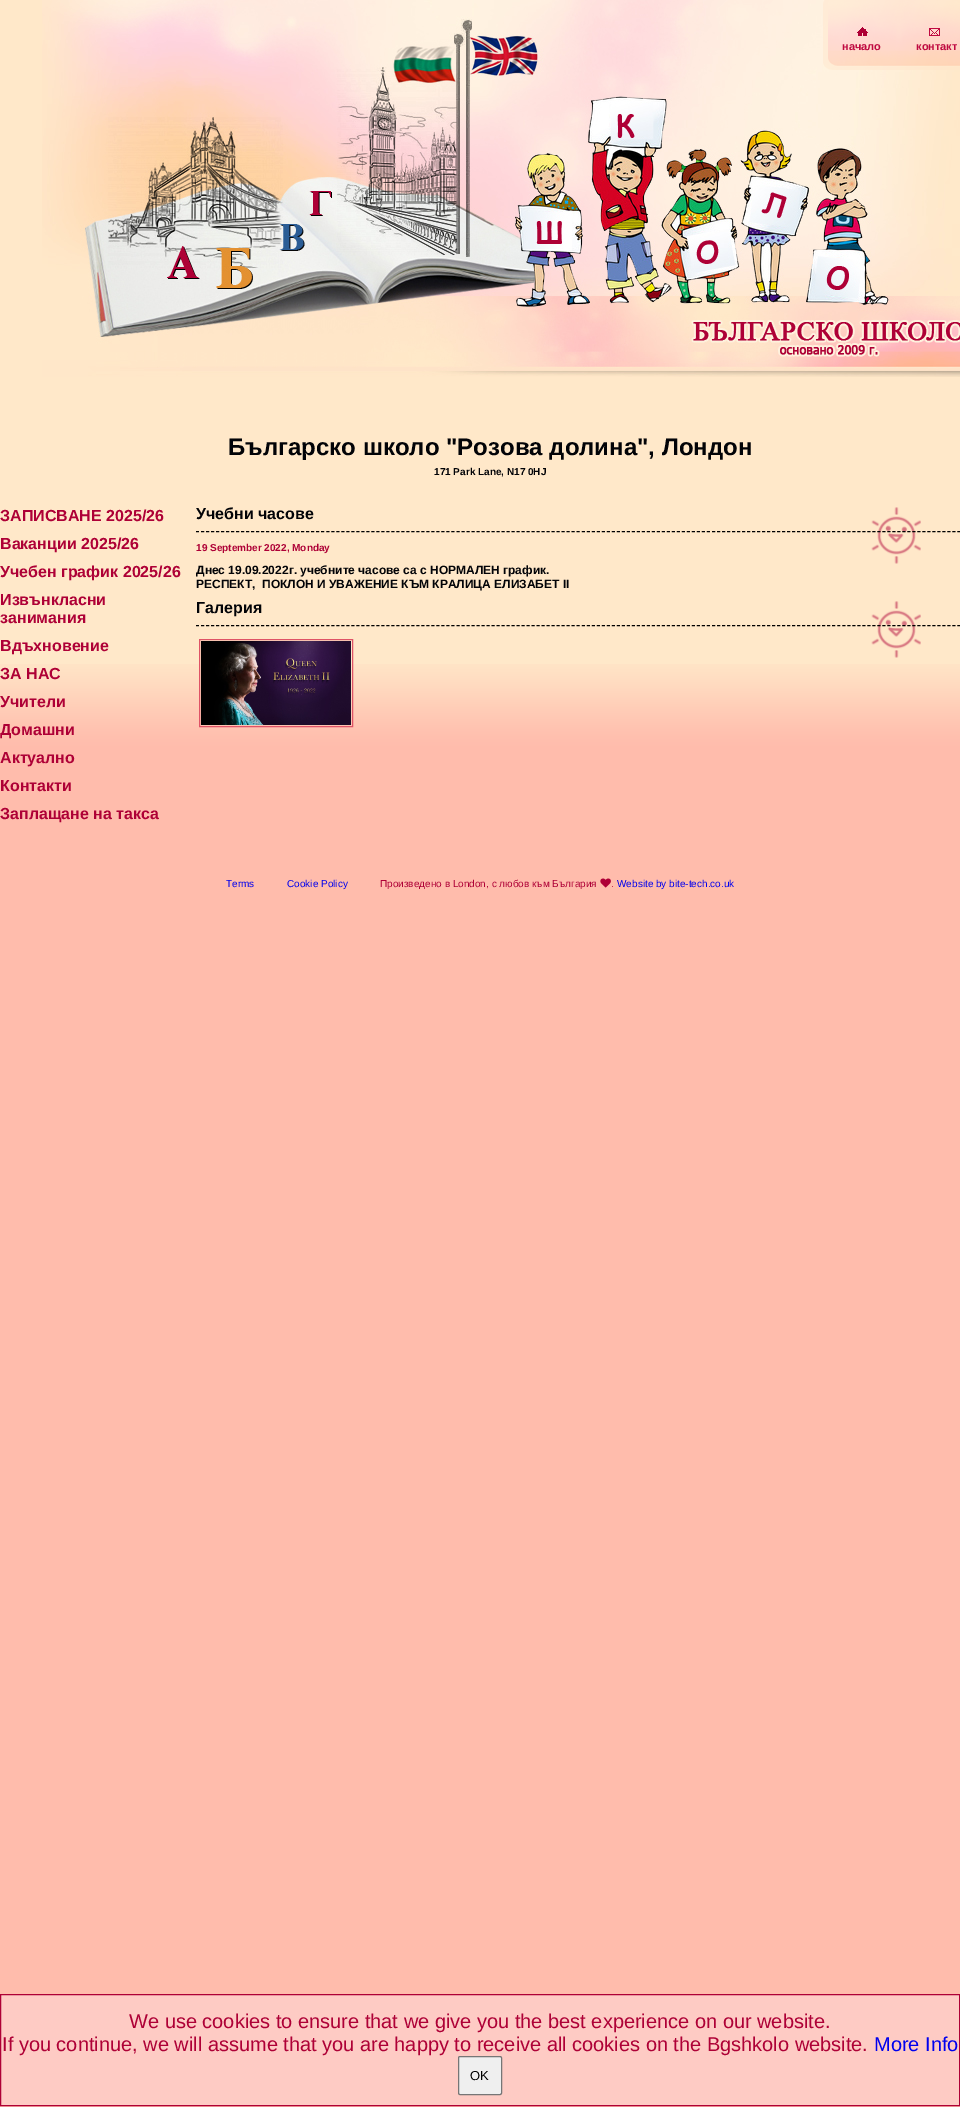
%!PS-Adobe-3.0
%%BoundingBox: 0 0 960 2107
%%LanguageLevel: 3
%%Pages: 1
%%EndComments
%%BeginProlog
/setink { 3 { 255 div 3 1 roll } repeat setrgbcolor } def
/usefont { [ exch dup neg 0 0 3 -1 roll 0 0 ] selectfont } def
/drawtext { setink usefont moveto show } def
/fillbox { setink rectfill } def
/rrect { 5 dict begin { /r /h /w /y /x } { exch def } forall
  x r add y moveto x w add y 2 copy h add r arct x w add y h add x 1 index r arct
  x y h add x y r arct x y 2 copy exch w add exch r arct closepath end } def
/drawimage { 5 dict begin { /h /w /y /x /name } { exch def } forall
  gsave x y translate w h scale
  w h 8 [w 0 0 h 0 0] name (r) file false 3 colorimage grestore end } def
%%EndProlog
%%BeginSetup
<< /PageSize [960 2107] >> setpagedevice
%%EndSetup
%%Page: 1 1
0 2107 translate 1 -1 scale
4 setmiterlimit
0 0 960 2107 255 188 172 fillbox
0 0 960 664 255 232 201 fillbox
(assets/img1.rgb) 0 664 960 179 drawimage
(assets/img2.rgb) 42 0 918 377 drawimage
(assets/img3.rgb) 823 0 76 70 drawimage
(начало) 842 50 /LiberationSans-Bold 11 191 9 65 drawtext
(assets/img4.rgb) 899 0 61 70 drawimage
(контакт) 916 50 /LiberationSans-Bold 11 191 9 65 drawtext
(Българско школо "Розова долина", Лондон) 228 455 /LiberationSans-Bold 24 2 3 7 drawtext
(171 Park Lane, N17 0HJ) 434 475 /LiberationSans-Bold 10 2 3 7 drawtext
(ЗАПИСВАНЕ 2025/26) 0 521 /LiberationSans-Bold 16 174 0 54 drawtext
(Ваканции 2025/26) 0 549 /LiberationSans-Bold 16 174 0 54 drawtext
(Учебен график 2025/26) 0 577 /LiberationSans-Bold 16 174 0 54 drawtext
(Извънкласни) 0 605 /LiberationSans-Bold 16 174 0 54 drawtext
(занимания) 0 623 /LiberationSans-Bold 16 174 0 54 drawtext
(Вдъхновение) 0 651 /LiberationSans-Bold 16 174 0 54 drawtext
(ЗА НАС) 0 679 /LiberationSans-Bold 16 174 0 54 drawtext
(Учители) 0 707 /LiberationSans-Bold 16 174 0 54 drawtext
(Домашни) 0 735 /LiberationSans-Bold 16 174 0 54 drawtext
(Актуално) 0 763 /LiberationSans-Bold 16 174 0 54 drawtext
(Контакти) 0 791 /LiberationSans-Bold 16 174 0 54 drawtext
(Заплащане на такса) 0 819 /LiberationSans-Bold 16 174 0 54 drawtext
(assets/img5.rgb) 871 507 50 57 drawimage
0 0 0 setink
[3 2.01] 0 setdash
196 531.5 moveto 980 531.5 lineto stroke
(Учебни часове) 196 519 /LiberationSans-Bold 16 2 3 7 drawtext
(19 September 2022, Monday) 196 551 /LiberationSans-Bold 10 174 0 54 drawtext
(Днес 19.09.2022г. учебните часове са с НОРМАЛЕН график.) 196 574 /LiberationSans-Bold 12 2 3 7 drawtext
(РЕСПЕКТ,  ПОКЛОН И УВАЖЕНИЕ КЪМ КРАЛИЦА ЕЛИЗАБЕТ II) 196 588 /LiberationSans-Bold 12 2 3 7 drawtext
(assets/img5.rgb) 871 601 50 57 drawimage
0 0 0 setink
196 625.5 moveto 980 625.5 lineto stroke
(Галерия) 196 613 /LiberationSans-Bold 16 2 3 7 drawtext
223 83 102 setink
[] 0 setdash
199.5 639.5 153 87 rectstroke
(assets/img6.rgb) 201 641 150 84 drawimage
(Terms) 226 887 /LiberationSans-Regular 10 0 0 238 drawtext
(Cookie Policy) 287 887 /LiberationSans-Regular 10 0 0 238 drawtext
(Произведено в London, с любов към България) 380 887 /LiberationSans-Regular 10 174 0 54 drawtext
(assets/img7.rgb) 600 878 11 10 drawimage
(.) 611 887 /LiberationSans-Regular 10 174 0 54 drawtext
(Website by bite-tech.co.uk) 617 887 /LiberationSans-Regular 10 0 0 238 drawtext
254 203 196 setink
0.5 1994.5 moveto 959.5 1994.5 lineto 959.5 2105.5 lineto 0.5 2105.5 lineto closepath gsave fill grestore
174 0 54 setink
stroke
(We use cookies to ensure that we give you the best experience on our website.) 129 2028 /LiberationSans-Regular 20 174 0 54 drawtext
(If you continue, we will assume that you are happy to receive all cookies on the Bgshkolo website.) 2 2051 /LiberationSans-Regular 20 174 0 54 drawtext
(More Info) 874 2051 /LiberationSans-Regular 20 0 0 238 drawtext
239 239 239 setink
458.5 2056.5 43 38 1.5 rrect gsave fill grestore
118 118 118 setink
stroke
(OK) 470 2080 /LiberationSans-Regular 13 0 0 0 drawtext
showpage
%%EOF
